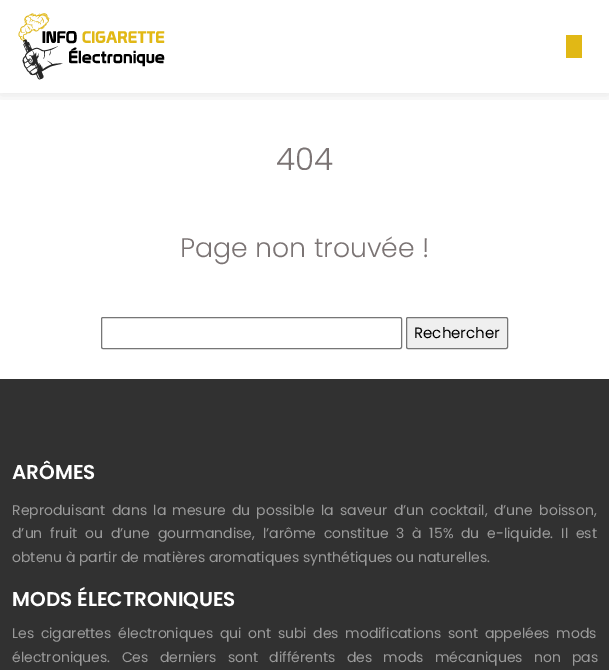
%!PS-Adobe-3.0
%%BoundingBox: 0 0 609 670
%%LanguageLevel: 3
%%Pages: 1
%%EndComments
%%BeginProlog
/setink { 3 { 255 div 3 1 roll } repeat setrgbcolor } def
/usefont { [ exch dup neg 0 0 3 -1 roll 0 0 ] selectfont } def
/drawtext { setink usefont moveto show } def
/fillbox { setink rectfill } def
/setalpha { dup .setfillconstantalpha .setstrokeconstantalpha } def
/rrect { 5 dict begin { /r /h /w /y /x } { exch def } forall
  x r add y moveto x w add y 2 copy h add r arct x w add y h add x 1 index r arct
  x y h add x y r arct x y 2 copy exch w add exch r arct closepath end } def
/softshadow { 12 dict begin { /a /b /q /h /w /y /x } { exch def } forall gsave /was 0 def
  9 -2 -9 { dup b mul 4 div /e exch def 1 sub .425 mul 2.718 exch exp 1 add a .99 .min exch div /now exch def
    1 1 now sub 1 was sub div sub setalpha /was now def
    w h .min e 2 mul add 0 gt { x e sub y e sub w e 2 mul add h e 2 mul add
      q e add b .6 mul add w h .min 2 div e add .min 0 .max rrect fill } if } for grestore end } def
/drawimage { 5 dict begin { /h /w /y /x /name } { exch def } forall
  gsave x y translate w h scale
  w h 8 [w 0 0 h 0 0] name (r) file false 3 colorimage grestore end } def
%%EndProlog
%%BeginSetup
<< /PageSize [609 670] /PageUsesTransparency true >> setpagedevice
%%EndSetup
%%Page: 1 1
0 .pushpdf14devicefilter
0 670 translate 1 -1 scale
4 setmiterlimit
0 0 609 670 255 255 255 fillbox
gsave
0 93 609 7 rectclip
0 0 0 setink
0 2 609 93 0 6.5 0.1 softshadow
grestore
(assets/img1.rgb) 18 13 147 67 drawimage
566 35 16 23 225 184 21 fillbox
(404) 276 170 /Poppins-Light 31 123 116 116 drawtext
(Page non trouvée !) 180 257 /Poppins-Light 26.75 123 116 116 drawtext
118 118 118 setink
101.5 317.5 300 31 1.5 rrect stroke
239 239 239 setink
406.5 317.5 101 31 1.5 rrect gsave fill grestore
118 118 118 setink
stroke
(Rechercher) 414 338 /Poppins-Regular 15 0 0 0 drawtext
0 379 609 291 49 49 49 fillbox
(ARÔMES) 12 479 /Poppins-SemiBold 20 255 255 255 drawtext
/Poppins-Regular 14 usefont
154 154 154 setink
12 515 moveto 2.5 0 32 (Reproduisant dans la mesure du possible la saveur d’un cocktail, d’une boisson,) widthshow
12 538 moveto 4 0 32 (d’un fruit ou d’une gourmandise, l’arôme constitue 3 à 15% du e-liquide. Il est) widthshow
(obtenu à partir de matières aromatiques synthétiques ou naturelles.) 12 562 /Poppins-Regular 14 154 154 154 drawtext
(MODS ÉLECTRONIQUES) 12 606 /Poppins-SemiBold 20 255 255 255 drawtext
/Poppins-Regular 14 usefont
154 154 154 setink
12 638 moveto 2.75 0 32 (Les cigarettes électroniques qui ont subi des modifications sont appelées mods) widthshow
12 662 moveto 7.5 0 32 (électroniques. Ces derniers sont différents des mods mécaniques non pas) widthshow
.poppdf14devicefilter showpage
%%EOF
